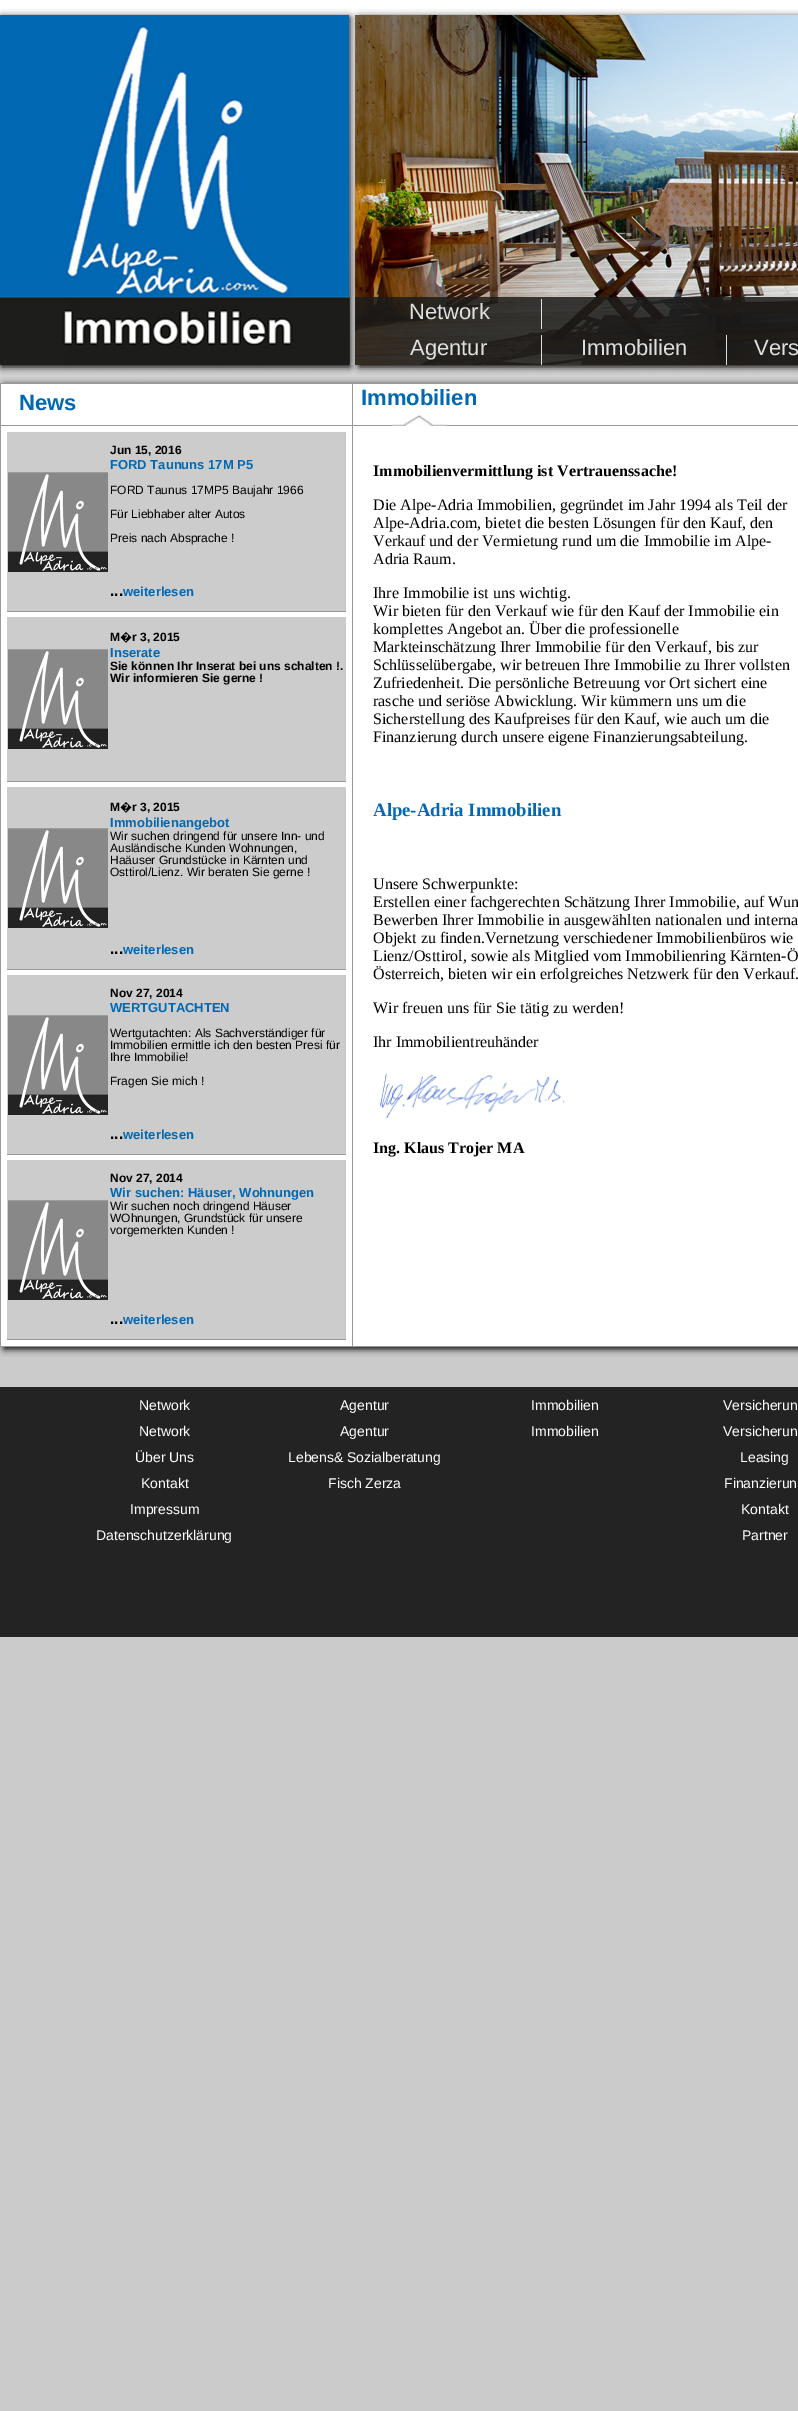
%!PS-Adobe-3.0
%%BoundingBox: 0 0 798 2411
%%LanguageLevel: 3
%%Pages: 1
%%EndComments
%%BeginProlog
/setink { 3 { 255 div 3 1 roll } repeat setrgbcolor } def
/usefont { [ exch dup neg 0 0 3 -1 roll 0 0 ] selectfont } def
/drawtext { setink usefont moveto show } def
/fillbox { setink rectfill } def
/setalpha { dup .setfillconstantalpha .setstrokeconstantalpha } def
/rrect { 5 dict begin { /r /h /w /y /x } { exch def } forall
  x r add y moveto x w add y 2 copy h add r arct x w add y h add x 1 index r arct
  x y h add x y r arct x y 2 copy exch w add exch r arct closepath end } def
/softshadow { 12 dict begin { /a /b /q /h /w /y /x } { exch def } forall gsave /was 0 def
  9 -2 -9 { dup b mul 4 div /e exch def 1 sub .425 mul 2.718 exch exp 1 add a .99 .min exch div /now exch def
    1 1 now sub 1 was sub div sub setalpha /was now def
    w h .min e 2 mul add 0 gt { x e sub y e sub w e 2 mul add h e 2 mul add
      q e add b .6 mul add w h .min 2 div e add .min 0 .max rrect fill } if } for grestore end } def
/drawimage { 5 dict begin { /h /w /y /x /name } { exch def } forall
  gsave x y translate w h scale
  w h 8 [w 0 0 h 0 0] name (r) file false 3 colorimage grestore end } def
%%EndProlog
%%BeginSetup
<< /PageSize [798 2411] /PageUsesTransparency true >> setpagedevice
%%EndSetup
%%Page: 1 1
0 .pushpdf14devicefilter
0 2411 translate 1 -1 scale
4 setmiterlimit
0 0 798 2411 203 203 203 fillbox
(assets/img1.rgb) 0 0 798 383 drawimage
0 0 0 setink
1 17 349 350 0 3.5 1 softshadow
(assets/img2.rgb) 0 15 349 350 drawimage
359 17 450 350 0 3.5 1 softshadow
(assets/img3.rgb) 355 15 443 350 drawimage
(assets/img4.rgb) 65 297 733 68 drawimage
0.85 setalpha
541 299 1 30 255 255 255 fillbox
1 setalpha
(Network) 409 319 /LiberationSans-Regular 22 223 223 222 drawtext
0.85 setalpha
541 335 1 30 255 255 255 fillbox
1 setalpha
(Agentur) 410 355 /LiberationSans-Regular 22 223 223 222 drawtext
0.85 setalpha
726 335 1 30 255 255 255 fillbox
1 setalpha
(Immobilien) 581 355 /LiberationSans-Regular 22 223 223 222 drawtext
(Vers) 754 355 /LiberationSans-Regular 22 223 223 222 drawtext
0 0 0 setink
4 385 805 964 0 3.5 1 softshadow
1 384 797 962 255 255 255 fillbox
0 383 798 1 153 153 153 fillbox
0 1346 798 1 153 153 153 fillbox
0 383 1 964 153 153 153 fillbox
(News) 19 410 /LiberationSans-Bold 22 1 104 179 drawtext
352 425 446 1 153 153 153 fillbox
352 425 1 922 153 153 153 fillbox
0 425 353 1 153 153 153 fillbox
352 383 1 43 153 153 153 fillbox
(assets/img5.rgb) 392 412 55 14 drawimage
(Immobilien) 361 405 /LiberationSans-Bold 22 1 104 179 drawtext
7 432 339 179 204 204 204 fillbox
7 611 339 1 153 153 153 fillbox
(assets/img6.rgb) 8 472 100 100 drawimage
(Jun 15, 2016) 110 454 /LiberationSans-Bold 12 0 0 0 drawtext
(FORD Taununs 17M P5) 110 469 /LiberationSans-Bold 13 1 104 179 drawtext
(FORD Taunus 17MP5 Baujahr 1966) 110 494 /LiberationSans-Regular 12 0 0 0 drawtext
(Für Liebhaber alter Autos) 110 518 /LiberationSans-Regular 12 0 0 0 drawtext
(Preis nach Absprache !) 110 542 /LiberationSans-Regular 12 0 0 0 drawtext
(...) 110 596 /LiberationSans-Bold 16 0 0 0 drawtext
(weiterlesen) 123 596 /LiberationSans-Bold 13 1 104 179 drawtext
7 617 339 164 204 204 204 fillbox
7 781 339 1 153 153 153 fillbox
(assets/img6.rgb) 8 649 100 100 drawimage
(M) 110 641 /LiberationSans-Bold 12 0 0 0 drawtext
(�) 120 641 /NotoSans-Bold 12 0 0 0 drawtext
(r 3, 2015) 132 641 /LiberationSans-Bold 12 0 0 0 drawtext
(Inserate) 110 657 /LiberationSans-Bold 13 1 104 179 drawtext
(Sie können Ihr Inserat bei uns schalten !.) 110 670 /LiberationSans-Bold 12 0 0 0 drawtext
(Wir informieren Sie gerne !) 110 682 /LiberationSans-Bold 12 0 0 0 drawtext
7 787 339 182 204 204 204 fillbox
7 969 339 1 153 153 153 fillbox
(assets/img6.rgb) 8 828 100 100 drawimage
(M) 110 811 /LiberationSans-Bold 12 0 0 0 drawtext
(�) 120 811 /NotoSans-Bold 12 0 0 0 drawtext
(r 3, 2015) 132 811 /LiberationSans-Bold 12 0 0 0 drawtext
(Immobilienangebot) 110 827 /LiberationSans-Bold 13 1 104 179 drawtext
(Wir suchen dringend für unsere Inn- und) 110 840 /LiberationSans-Regular 12 0 0 0 drawtext
(Ausländische Kunden Wohnungen,) 110 852 /LiberationSans-Regular 12 0 0 0 drawtext
(Haäuser Grundstücke in Kärnten und) 110 864 /LiberationSans-Regular 12 0 0 0 drawtext
(Osttirol/Lienz. Wir beraten Sie gerne !) 110 876 /LiberationSans-Regular 12 0 0 0 drawtext
(...) 110 954 /LiberationSans-Bold 16 0 0 0 drawtext
(weiterlesen) 123 954 /LiberationSans-Bold 13 1 104 179 drawtext
7 975 339 179 204 204 204 fillbox
7 1154 339 1 153 153 153 fillbox
(assets/img6.rgb) 8 1015 100 100 drawimage
(Nov 27, 2014) 110 997 /LiberationSans-Bold 12 0 0 0 drawtext
(WERTGUTACHTEN) 110 1012 /LiberationSans-Bold 13 1 104 179 drawtext
(Wertgutachten: Als Sachverständiger für) 110 1037 /LiberationSans-Regular 12 0 0 0 drawtext
(Immobilien ermittle ich den besten Presi für) 110 1049 /LiberationSans-Regular 12 0 0 0 drawtext
(Ihre Immobilie!) 110 1061 /LiberationSans-Regular 12 0 0 0 drawtext
(Fragen Sie mich !) 110 1085 /LiberationSans-Regular 12 0 0 0 drawtext
(...) 110 1139 /LiberationSans-Bold 16 0 0 0 drawtext
(weiterlesen) 123 1139 /LiberationSans-Bold 13 1 104 179 drawtext
7 1160 339 179 204 204 204 fillbox
7 1339 339 1 153 153 153 fillbox
(assets/img6.rgb) 8 1200 100 100 drawimage
(Nov 27, 2014) 110 1182 /LiberationSans-Bold 12 0 0 0 drawtext
(Wir suchen: Häuser, Wohnungen) 110 1197 /LiberationSans-Bold 13 1 104 179 drawtext
(Wir suchen noch dringend Häuser) 110 1210 /LiberationSans-Regular 12 0 0 0 drawtext
(WOhnungen, Grundstück für unsere) 110 1222 /LiberationSans-Regular 12 0 0 0 drawtext
(vorgemerkten Kunden !) 110 1234 /LiberationSans-Regular 12 0 0 0 drawtext
(...) 110 1324 /LiberationSans-Bold 16 0 0 0 drawtext
(weiterlesen) 123 1324 /LiberationSans-Bold 13 1 104 179 drawtext
(Immobilienvermittlung ist Vertrauenssache!) 373 476 /LiberationSerif-Bold 16 0 0 0 drawtext
(Die Alpe-Adria Immobilien, gegründet im Jahr 1994 als Teil der) 373 510 /LiberationSerif-Regular 16 0 0 0 drawtext
(Alpe-Adria.com, bietet die besten Lösungen für den Kauf, den) 373 528 /LiberationSerif-Regular 16 0 0 0 drawtext
(Verkauf und der Vermietung rund um die Immobilie im Alpe-) 373 546 /LiberationSerif-Regular 16 0 0 0 drawtext
(Adria Raum.) 373 564 /LiberationSerif-Regular 16 0 0 0 drawtext
(Ihre Immobilie ist uns wichtig.) 373 598 /LiberationSerif-Regular 16 0 0 0 drawtext
(Wir bieten für den Verkauf wie für den Kauf der Immobilie ein) 373 616 /LiberationSerif-Regular 16 0 0 0 drawtext
(komplettes Angebot an. Über die professionelle) 373 634 /LiberationSerif-Regular 16 0 0 0 drawtext
(Markteinschätzung Ihrer Immobilie für den Verkauf, bis zur) 373 652 /LiberationSerif-Regular 16 0 0 0 drawtext
(Schlüsselübergabe, wir betreuen Ihre Immobilie zu Ihrer vollsten) 373 670 /LiberationSerif-Regular 16 0 0 0 drawtext
(Zufriedenheit. Die persönliche Betreuung vor Ort sichert eine) 373 688 /LiberationSerif-Regular 16 0 0 0 drawtext
(rasche und seriöse Abwicklung. Wir kümmern uns um die) 373 706 /LiberationSerif-Regular 16 0 0 0 drawtext
(Sicherstellung des Kaufpreises für den Kauf, wie auch um die) 373 724 /LiberationSerif-Regular 16 0 0 0 drawtext
(Finanzierung durch unsere eigene Finanzierungsabteilung.) 373 742 /LiberationSerif-Regular 16 0 0 0 drawtext
(Alpe-Adria Immobilien) 373 816 /LiberationSerif-Bold 18.75 1 104 179 drawtext
(Unsere Schwerpunkte:) 373 889 /LiberationSerif-Regular 16 0 0 0 drawtext
(Erstellen einer fachgerechten Schätzung Ihrer Immobilie, auf Wun) 373 907 /LiberationSerif-Regular 16 0 0 0 drawtext
(Bewerben Ihrer Immobilie in ausgewählten nationalen und interna) 373 925 /LiberationSerif-Regular 16 0 0 0 drawtext
(Objekt zu finden.Vernetzung verschiedener Immobilienbüros wie) 373 943 /LiberationSerif-Regular 16 0 0 0 drawtext
(Lienz/Osttirol, sowie als Mitglied vom Immobilienring Kärnten-Ö) 373 961 /LiberationSerif-Regular 16 0 0 0 drawtext
(Österreich, bieten wir ein erfolgreiches Netzwerk für den Verkauf.) 373 979 /LiberationSerif-Regular 16 0 0 0 drawtext
(Wir freuen uns für Sie tätig zu werden!) 373 1013 /LiberationSerif-Regular 16 0 0 0 drawtext
(Ihr Immobilientreuhänder) 373 1047 /LiberationSerif-Regular 16 0 0 0 drawtext
(assets/img7.rgb) 380 1073 185 46 drawimage
(Ing. Klaus Trojer MA) 373 1153 /LiberationSerif-Bold 16 0 0 0 drawtext
0 1387 798 250 35 35 35 fillbox
(Network) 139 1410 /LiberationSans-Regular 14 255 255 255 drawtext
(Network) 139 1436 /LiberationSans-Regular 14 255 255 255 drawtext
(Über Uns) 135 1462 /LiberationSans-Regular 14 255 255 255 drawtext
(Kontakt) 141 1488 /LiberationSans-Regular 14 255 255 255 drawtext
(Impressum) 130 1514 /LiberationSans-Regular 14 255 255 255 drawtext
(Datenschutzerklärung) 96 1540 /LiberationSans-Regular 14 255 255 255 drawtext
(Agentur) 340 1410 /LiberationSans-Regular 14 255 255 255 drawtext
(Agentur) 340 1436 /LiberationSans-Regular 14 255 255 255 drawtext
(Lebens& Sozialberatung) 288 1462 /LiberationSans-Regular 14 255 255 255 drawtext
(Fisch Zerza) 328 1488 /LiberationSans-Regular 14 255 255 255 drawtext
(Immobilien) 531 1410 /LiberationSans-Regular 14 255 255 255 drawtext
(Immobilien) 531 1436 /LiberationSans-Regular 14 255 255 255 drawtext
(Versicherun) 723 1410 /LiberationSans-Regular 14 255 255 255 drawtext
(Versicherun) 723 1436 /LiberationSans-Regular 14 255 255 255 drawtext
(Leasing) 740 1462 /LiberationSans-Regular 14 255 255 255 drawtext
(Finanzierun) 724 1488 /LiberationSans-Regular 14 255 255 255 drawtext
(Kontakt) 741 1514 /LiberationSans-Regular 14 255 255 255 drawtext
(Partner) 742 1540 /LiberationSans-Regular 14 255 255 255 drawtext
.poppdf14devicefilter showpage
%%EOF
